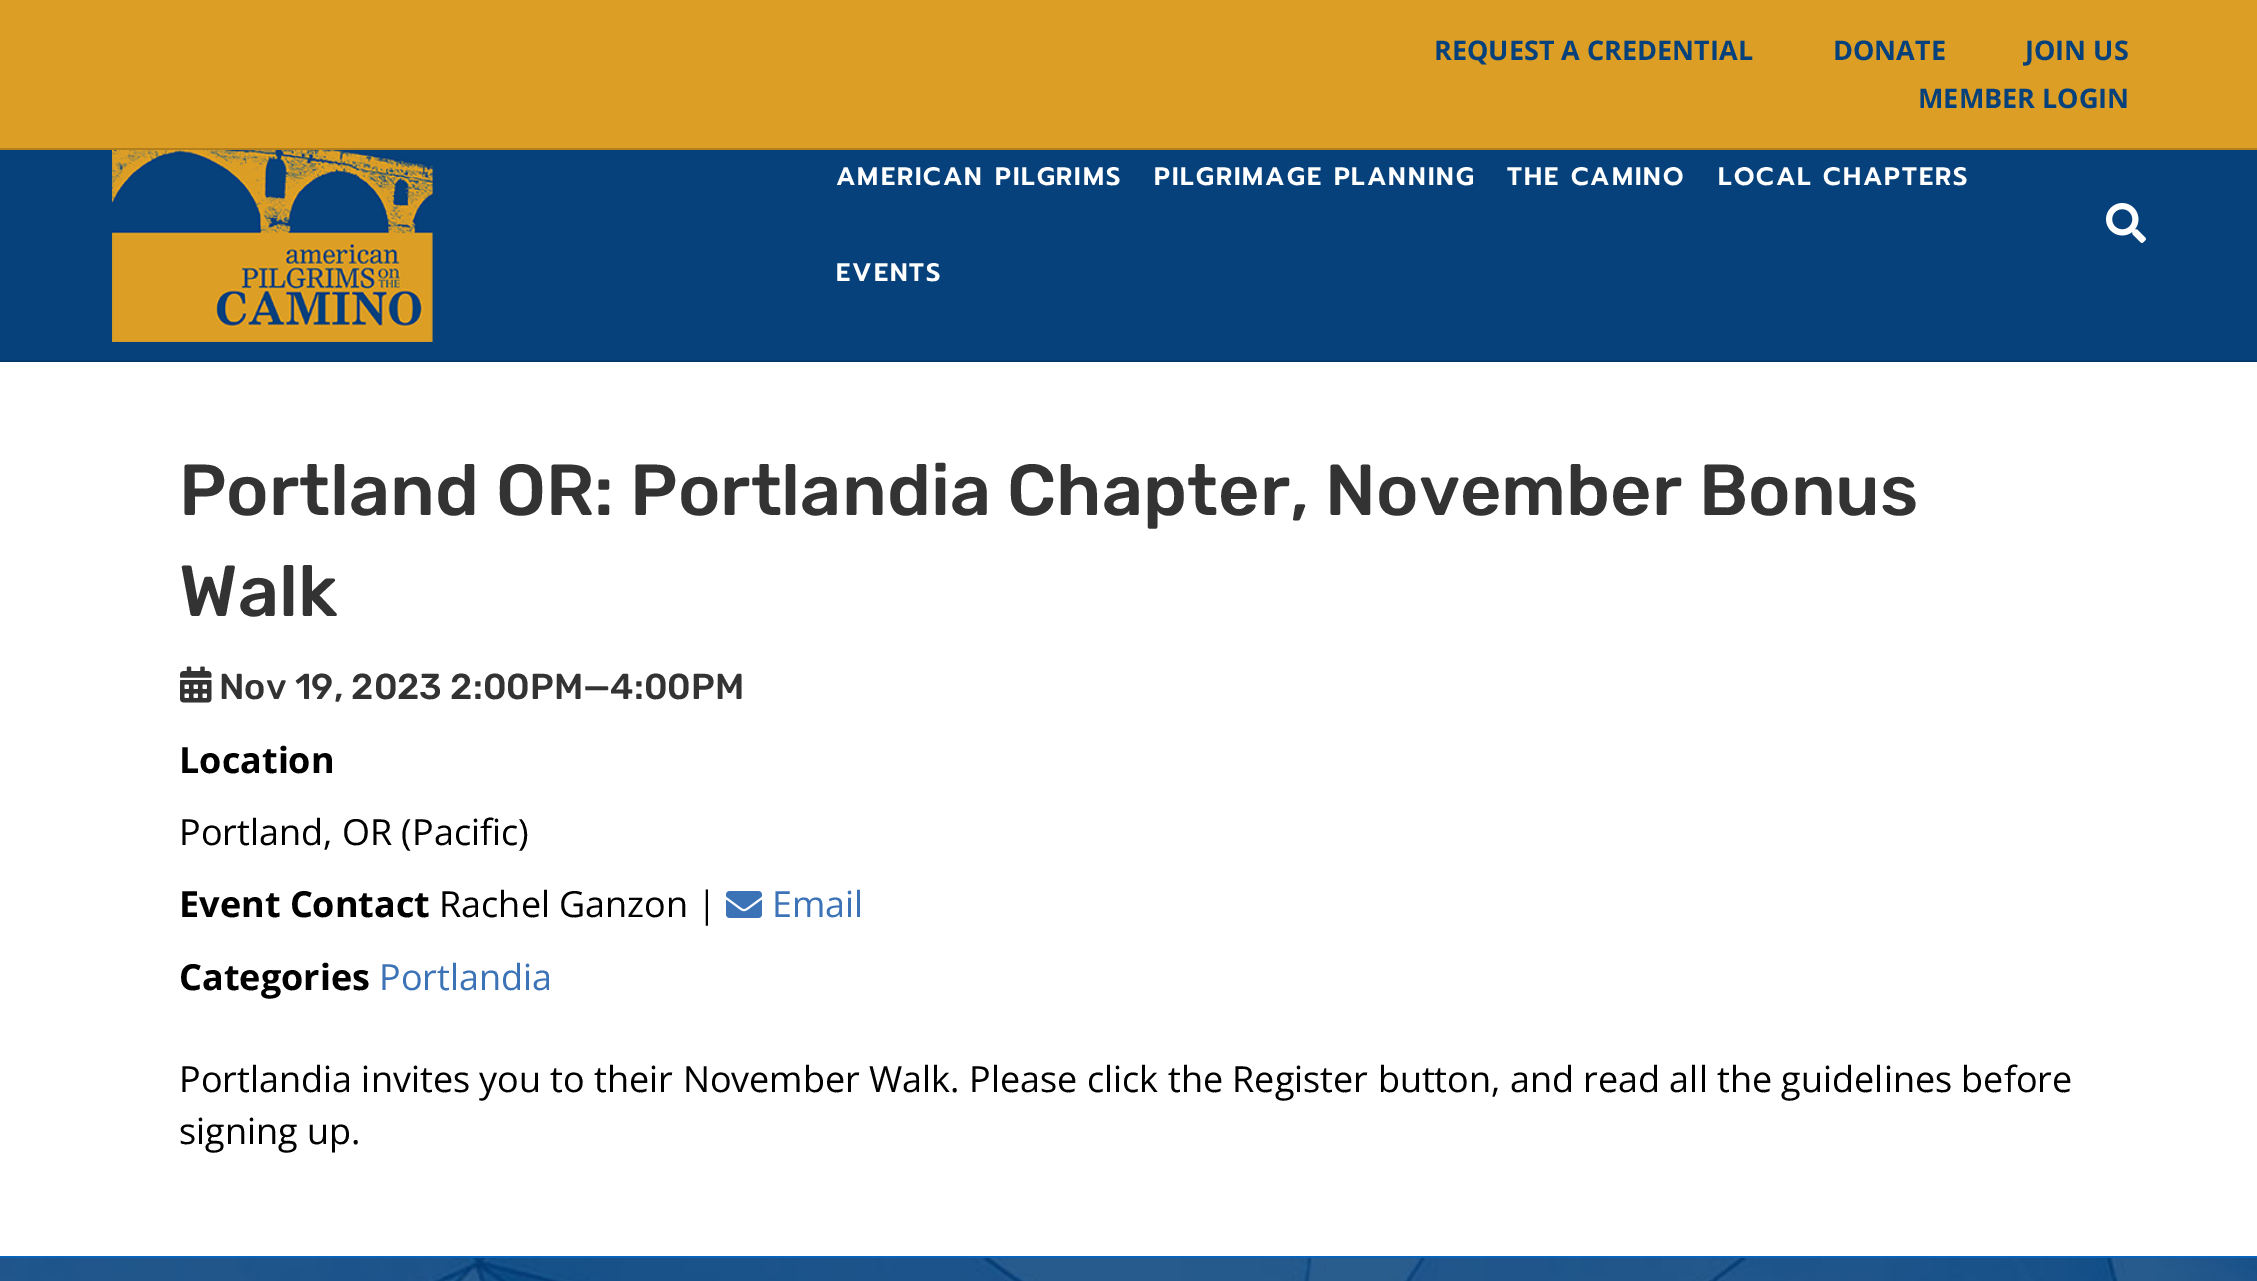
%!PS-Adobe-3.0
%%BoundingBox: 0 0 2257 1281
%%LanguageLevel: 3
%%Pages: 1
%%EndComments
%%BeginProlog
/setink { 3 { 255 div 3 1 roll } repeat setrgbcolor } def
/usefont { [ exch dup neg 0 0 3 -1 roll 0 0 ] selectfont } def
/drawtext { setink usefont moveto show } def
/fillbox { setink rectfill } def
/drawimage { 5 dict begin { /h /w /y /x /name } { exch def } forall
  gsave x y translate w h scale
  w h 8 [w 0 0 h 0 0] name (r) file false 3 colorimage grestore end } def
%%EndProlog
%%BeginSetup
<< /PageSize [2257 1281] >> setpagedevice
%%EndSetup
%%Page: 1 1
0 1281 translate 1 -1 scale
4 setmiterlimit
0 0 2257 1281 6 65 123 fillbox
0 0 2257 148 220 158 37 fillbox
0 148 2257 2 178 127 28 fillbox
(REQUEST A CREDENTIAL) 1434 60 /OpenSans-Bold 27 6 65 123 drawtext
(DONATE) 1833 60 /OpenSans-Bold 27 6 65 123 drawtext
(JOIN US) 2025 60 /OpenSans-Bold 27 6 65 123 drawtext
(MEMBER LOGIN) 1918 108 /OpenSans-Bold 27 6 65 123 drawtext
0 360 2257 2 5 57 107 fillbox
(assets/img1.rgb) 112 150 321 192 drawimage
/Prompt-SemiBold 25.25 usefont
255 255 255 setink
836 185 moveto 2 0 (AMERICAN PILGRIMS) ashow
1154 185 moveto 2 0 (PILGRIMAGE PLANNING) ashow
1507 185 moveto 2 0 (THE CAMINO) ashow
1718 185 moveto 2 0 (LOCAL CHAPTERS) ashow
836 281 moveto 2 0 (EVENTS) ashow
(assets/img2.rgb) 2106 203 40 40 drawimage
0 362 2257 894 255 255 255 fillbox
(Portland OR: Portlandia Chapter, November Bonus) 179 515 /Rubik-Light 72 51 51 51 drawtext
(Walk) 179 616 /Rubik-Light 72 51 51 51 drawtext
(assets/img3.rgb) 180 666 32 37 drawimage
(Nov 19, 2023 2:00PM—4:00PM) 219 699 /Rubik-Light 36 51 51 51 drawtext
(Location) 179 773 /OpenSans-Bold 36 0 0 0 drawtext
(Portland, OR \(Pacific\)) 179 845 /OpenSans-Regular 36 0 0 0 drawtext
(Event Contact) 179 917 /OpenSans-Bold 36 0 0 0 drawtext
(Rachel Ganzon |) 439 917 /OpenSans-Regular 36 0 0 0 drawtext
(assets/img4.rgb) 726 891 36 27 drawimage
(Email) 772 917 /OpenSans-Regular 36 60 115 183 drawtext
(Categories) 179 990 /OpenSans-Bold 36 0 0 0 drawtext
(Portlandia) 379 990 /OpenSans-Regular 36 60 115 183 drawtext
(Portlandia invites you to their November Walk. Please click the Register button, and read all the guidelines before) 179 1092 /OpenSans-Regular 36 0 0 0 drawtext
(signing up.) 179 1144 /OpenSans-Regular 36 0 0 0 drawtext
(assets/img5.rgb) 0 1258 2257 23 drawimage
0 1256 2257 2 9 98 186 fillbox
showpage
%%EOF
